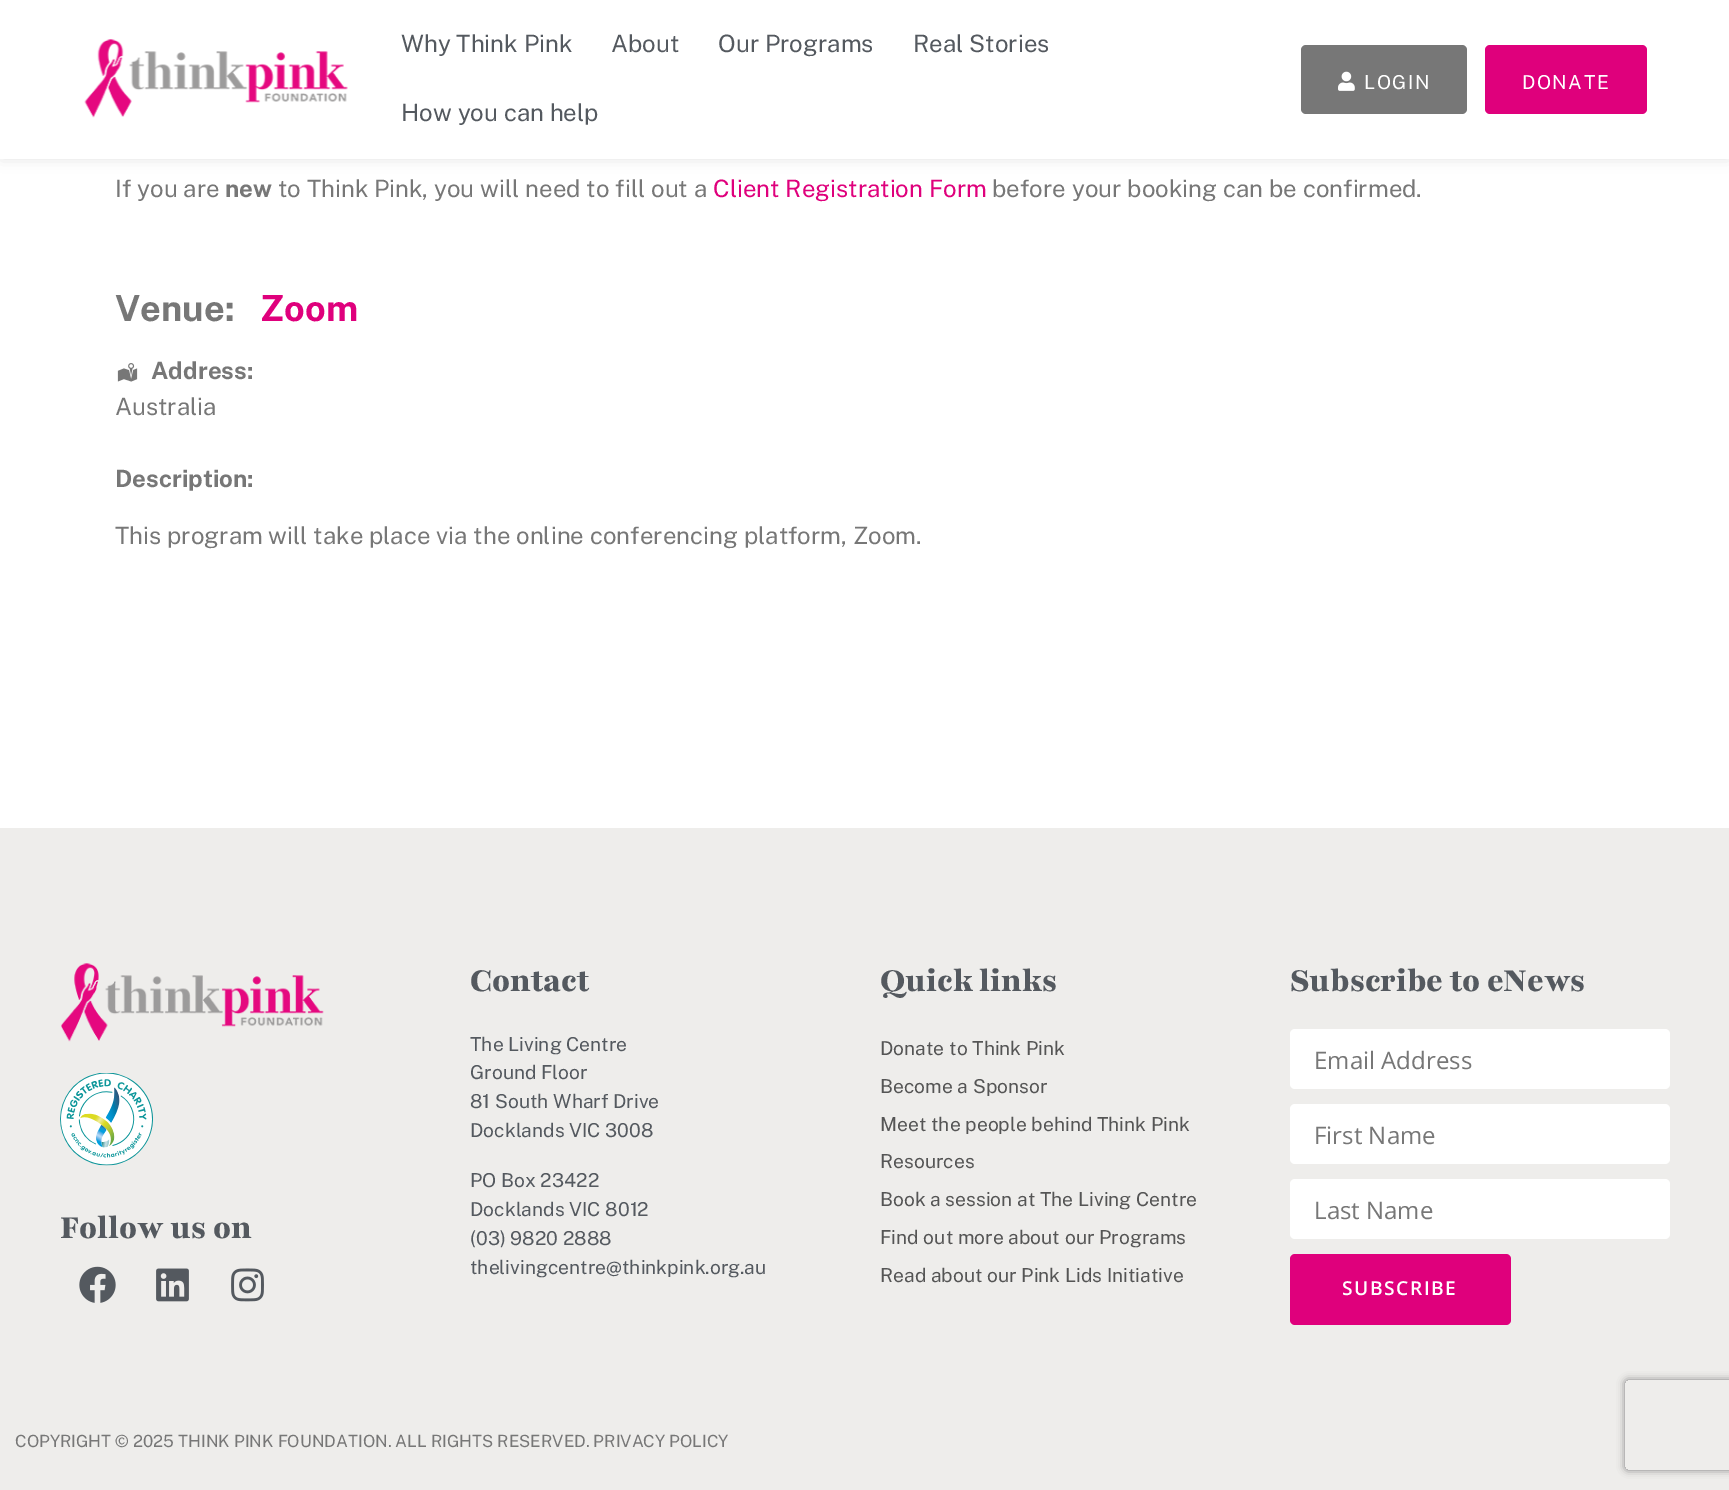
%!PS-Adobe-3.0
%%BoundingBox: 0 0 1729 1490
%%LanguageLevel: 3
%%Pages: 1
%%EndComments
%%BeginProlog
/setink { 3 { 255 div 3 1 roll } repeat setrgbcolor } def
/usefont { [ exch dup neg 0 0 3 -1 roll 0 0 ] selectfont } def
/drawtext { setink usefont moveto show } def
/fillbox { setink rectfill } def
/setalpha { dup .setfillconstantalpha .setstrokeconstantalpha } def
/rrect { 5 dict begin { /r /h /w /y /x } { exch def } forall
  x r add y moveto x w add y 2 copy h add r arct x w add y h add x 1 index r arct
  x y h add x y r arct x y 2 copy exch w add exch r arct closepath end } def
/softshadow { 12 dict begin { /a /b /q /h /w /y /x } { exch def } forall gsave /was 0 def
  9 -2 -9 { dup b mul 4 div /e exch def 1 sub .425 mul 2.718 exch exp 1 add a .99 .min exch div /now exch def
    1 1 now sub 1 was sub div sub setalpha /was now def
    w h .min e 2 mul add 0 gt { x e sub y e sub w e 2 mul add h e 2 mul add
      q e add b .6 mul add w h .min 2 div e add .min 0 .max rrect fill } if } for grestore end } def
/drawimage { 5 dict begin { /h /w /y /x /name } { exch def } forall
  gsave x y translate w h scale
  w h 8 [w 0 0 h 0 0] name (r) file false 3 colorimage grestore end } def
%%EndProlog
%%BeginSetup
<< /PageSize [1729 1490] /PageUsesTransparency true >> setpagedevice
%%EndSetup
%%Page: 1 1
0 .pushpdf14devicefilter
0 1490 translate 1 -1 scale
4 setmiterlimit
0 0 1729 1490 255 255 255 fillbox
221 221 221 setink
2 2 1726 156 0 7 1 softshadow
0 0 1729 159 255 255 255 fillbox
(assets/img1.rgb) 84 39 264 79 drawimage
(Why Think Pink) 401 52 /PublicSans-Regular 24 84 89 95 drawtext
(About) 611 52 /PublicSans-Regular 24 84 89 95 drawtext
(Our Programs) 718 52 /PublicSans-Regular 24 84 89 95 drawtext
(Real Stories) 913 52 /PublicSans-Regular 24 84 89 95 drawtext
(How you can help) 401 121 /PublicSans-Regular 24 84 89 95 drawtext
119 119 119 setink
1301 45 166 69 5 rrect fill
(assets/img2.rgb) 1338 71 17 20 drawimage
/PublicSans-Regular 19.25 usefont
255 255 255 setink
1364 89 moveto 1.5 0 (LOGIN) ashow
223 0 124 setink
1485 45 162 69 5 rrect fill
255 255 255 setink
1522 89 moveto 1.5 0 (DONATE) ashow
(If you are) 115 197 /PublicSans-Regular 24 119 119 119 drawtext
(new) 225 197 /PublicSans-Bold 24 119 119 119 drawtext
(to Think Pink, you will need to fill out a) 278 197 /PublicSans-Regular 24 119 119 119 drawtext
(Client Registration Form) 713 197 /PublicSans-Regular 24 223 0 124 drawtext
(before your booking can be confirmed.) 992 197 /PublicSans-Regular 24 119 119 119 drawtext
(Venue:) 115 321 /PublicSans-Bold 36 119 119 119 drawtext
(Zoom) 260 321 /PublicSans-Bold 36 223 0 124 drawtext
(assets/img3.rgb) 117 363 21 19 drawimage
(Address:) 151 379 /PublicSans-Bold 24 119 119 119 drawtext
(Australia) 115 415 /PublicSans-Regular 24 119 119 119 drawtext
(Description:) 115 487 /PublicSans-Bold 24 119 119 119 drawtext
(This program will take place via the online conferencing platform, Zoom.) 115 544 /PublicSans-Regular 24 119 119 119 drawtext
0 828 1729 662 238 237 235 fillbox
(assets/img4.rgb) 61 963 263 79 drawimage
(assets/img5.rgb) 60 1073 93 93 drawimage
(Follow us on) 60 1238 /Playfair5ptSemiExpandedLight-Black 36 84 89 95 drawtext
(assets/img6.rgb) 79 1266 37 37 drawimage
(assets/img7.rgb) 156 1268 33 34 drawimage
(assets/img8.rgb) 231 1268 33 34 drawimage
(Contact) 470 991 /Playfair5ptSemiExpandedLight-Black 36 84 89 95 drawtext
(The Living Centre) 470 1051 /PublicSans-Regular 19.25 84 89 95 drawtext
(Ground Floor) 470 1079 /PublicSans-Regular 19.25 84 89 95 drawtext
(81 South Wharf Drive) 470 1108 /PublicSans-Regular 19.25 84 89 95 drawtext
(Docklands VIC 3008) 470 1137 /PublicSans-Regular 19.25 84 89 95 drawtext
(PO Box 23422) 470 1187 /PublicSans-Regular 19.25 84 89 95 drawtext
(Docklands VIC 8012) 470 1216 /PublicSans-Regular 19.25 84 89 95 drawtext
(\(03\) 9820 2888) 470 1245 /PublicSans-Regular 19.25 84 89 95 drawtext
(thelivingcentre@thinkpink.org.au) 470 1274 /PublicSans-Regular 19.25 84 89 95 drawtext
(Quick links) 880 991 /Playfair5ptSemiExpandedLight-Black 36 84 89 95 drawtext
(Donate to Think Pink) 880 1055 /PublicSans-Regular 19.25 85 85 85 drawtext
(Become a Sponsor) 880 1093 /PublicSans-Regular 19.25 85 85 85 drawtext
(Meet the people behind Think Pink) 880 1131 /PublicSans-Regular 19.25 85 85 85 drawtext
(Resources) 880 1168 /PublicSans-Regular 19.25 85 85 85 drawtext
(Book a session at The Living Centre) 880 1206 /PublicSans-Regular 19.25 85 85 85 drawtext
(Find out more about our Programs) 880 1244 /PublicSans-Regular 19.25 85 85 85 drawtext
(Read about our Pink Lids Initiative) 880 1282 /PublicSans-Regular 19.25 85 85 85 drawtext
(Subscribe to eNews) 1290 991 /Playfair5ptSemiExpandedLight-Black 36 84 89 95 drawtext
255 255 255 setink
1290 1029 380 60 5 rrect fill
(Email Address) 1314 1069 /OpenSans-Regular 24 119 119 119 drawtext
255 255 255 setink
1290 1104 380 60 5 rrect fill
(First Name) 1314 1144 /OpenSans-Regular 24 119 119 119 drawtext
255 255 255 setink
1290 1179 380 60 5 rrect fill
(Last Name) 1314 1219 /OpenSans-Regular 24 119 119 119 drawtext
223 0 124 setink
1290 1254 221 71 5 rrect fill
/OpenSans-SemiBold 19.25 usefont
255 255 255 setink
1342 1295 moveto 1.5 0 (SUBSCRIBE) ashow
(COPYRIGHT © 2025 THINK PINK FOUNDATION. ALL RIGHTS RESERVED. PRIVACY POLICY) 15 1447 /PublicSans-Regular 16.8 119 119 119 drawtext
gsave
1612 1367 moveto 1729 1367 lineto 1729 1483 lineto 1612 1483 lineto closepath 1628 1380 moveto 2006 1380 lineto 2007.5 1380 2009 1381.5 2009 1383 curveto 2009 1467 lineto 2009 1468.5 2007.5 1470 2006 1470 curveto 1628 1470 lineto 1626.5 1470 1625 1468.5 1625 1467 curveto 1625 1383 lineto 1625 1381.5 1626.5 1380 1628 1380 curveto closepath eoclip newpath
128 128 128 setink
1625 1380 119 90 3 4 1 softshadow
grestore
.poppdf14devicefilter showpage
%%EOF
